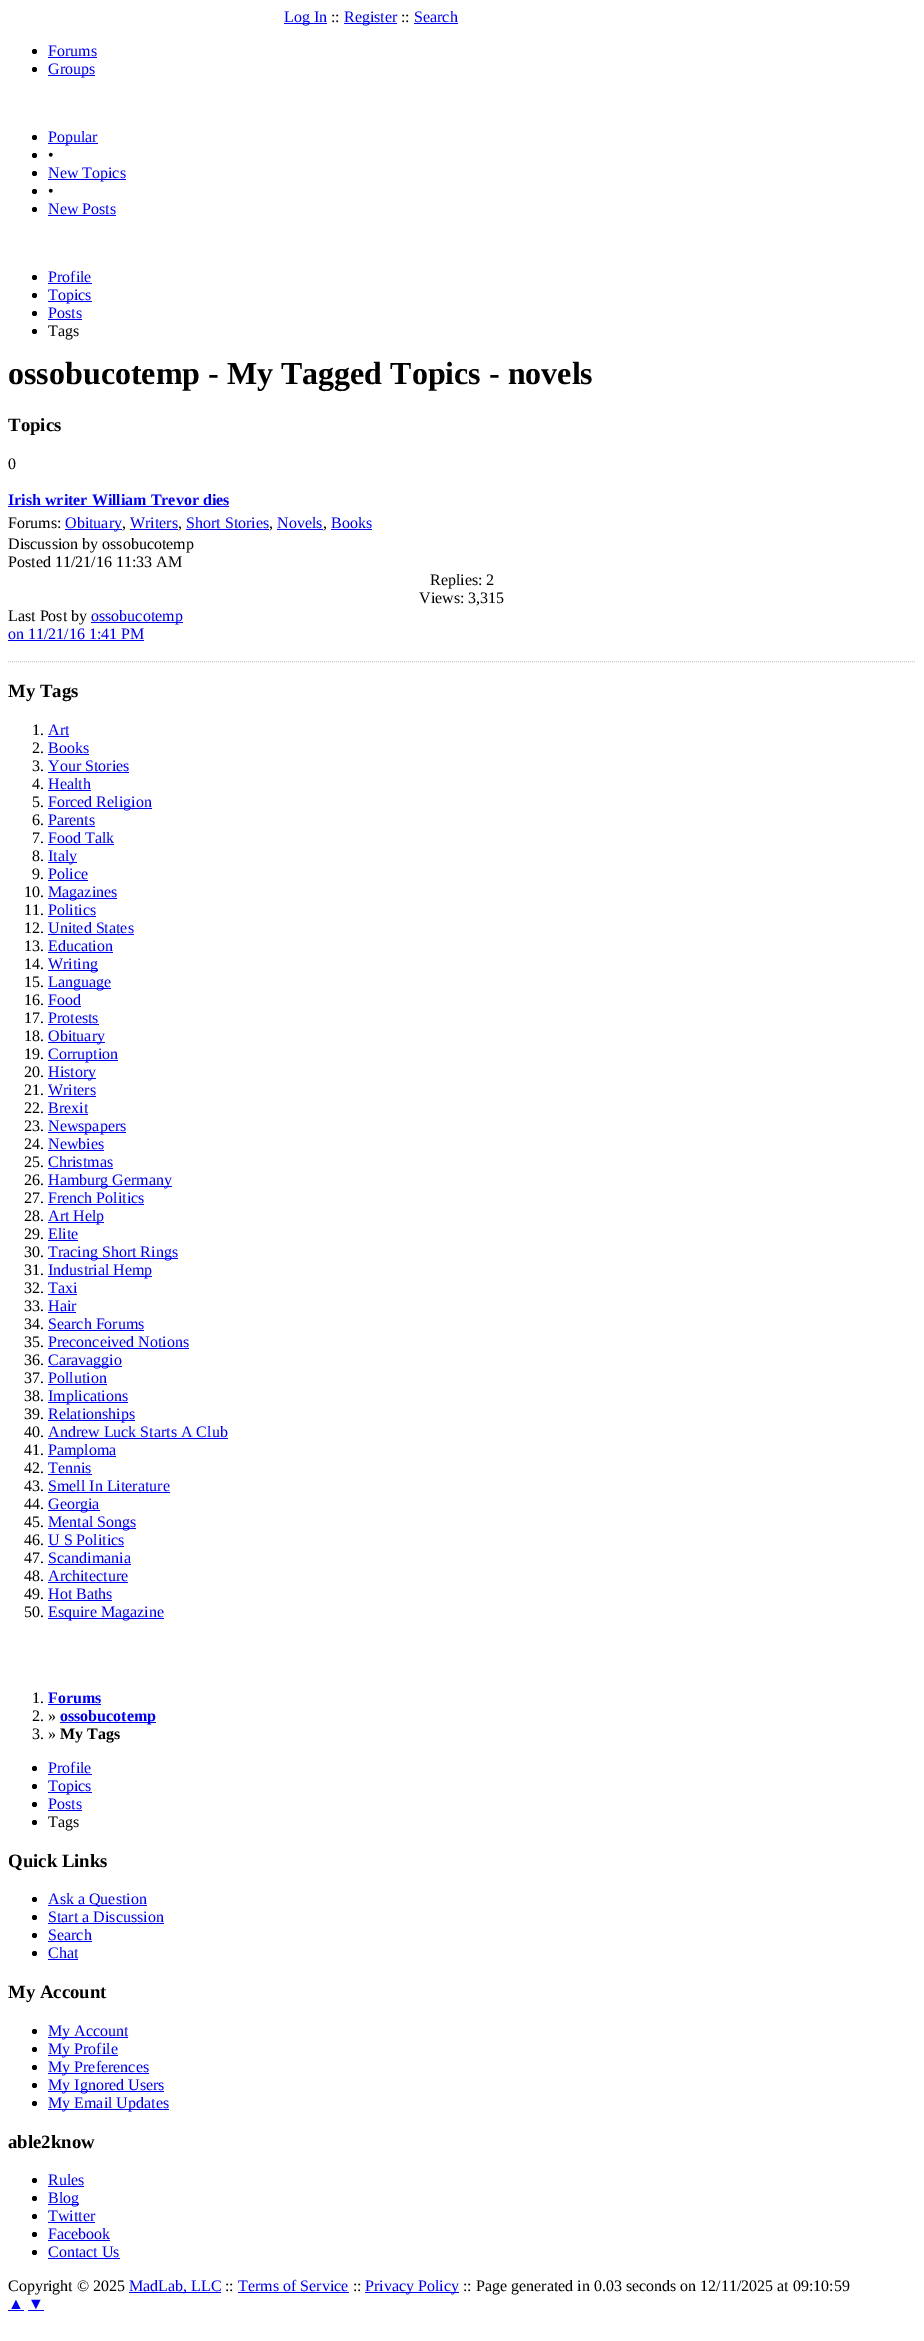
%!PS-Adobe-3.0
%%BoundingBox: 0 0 924 2341
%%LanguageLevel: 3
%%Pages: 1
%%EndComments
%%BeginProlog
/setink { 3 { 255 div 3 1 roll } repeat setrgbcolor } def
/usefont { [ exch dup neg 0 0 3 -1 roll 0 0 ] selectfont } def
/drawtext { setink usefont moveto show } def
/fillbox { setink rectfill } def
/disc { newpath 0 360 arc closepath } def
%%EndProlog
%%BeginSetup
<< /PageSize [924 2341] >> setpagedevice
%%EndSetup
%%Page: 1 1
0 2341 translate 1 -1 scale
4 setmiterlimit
0 0 924 2341 255 255 255 fillbox
284 23 43 1 0 0 238 fillbox
(Log In) 284 22 /LiberationSerif-Regular 16 0 0 238 drawtext
(::) 331 22 /LiberationSerif-Regular 16 0 0 0 drawtext
344 23 53 1 0 0 238 fillbox
(Register) 344 22 /LiberationSerif-Regular 16 0 0 238 drawtext
(::) 401 22 /LiberationSerif-Regular 16 0 0 0 drawtext
(Search) 414 22 /LiberationSerif-Regular 16 0 0 238 drawtext
414 23 44 1 0 0 238 fillbox
0 0 0 setink
34.5 51.5 2.5 disc fill
(Forums) 48 56 /LiberationSerif-Regular 16 0 0 238 drawtext
48 57 49 1 0 0 238 fillbox
0 0 0 setink
34.5 69.5 2.5 disc fill
48 75 47 1 0 0 238 fillbox
(Groups) 48 74 /LiberationSerif-Regular 16 0 0 238 drawtext
0 0 0 setink
34.5 137.5 2.5 disc fill
48 143 50 1 0 0 238 fillbox
(Popular) 48 142 /LiberationSerif-Regular 16 0 0 238 drawtext
0 0 0 setink
34.5 155.5 2.5 disc fill
(•) 48 160 /LiberationSerif-Regular 16 0 0 0 drawtext
34.5 173.5 2.5 disc fill
48 179 78 1 0 0 238 fillbox
(New Topics) 48 178 /LiberationSerif-Regular 16 0 0 238 drawtext
0 0 0 setink
34.5 191.5 2.5 disc fill
(•) 48 196 /LiberationSerif-Regular 16 0 0 0 drawtext
34.5 209.5 2.5 disc fill
(New Posts) 48 214 /LiberationSerif-Regular 16 0 0 238 drawtext
48 215 68 1 0 0 238 fillbox
0 0 0 setink
34.5 277.5 2.5 disc fill
(Profile) 48 282 /LiberationSerif-Regular 16 0 0 238 drawtext
48 283 44 1 0 0 238 fillbox
0 0 0 setink
34.5 295.5 2.5 disc fill
48 301 44 1 0 0 238 fillbox
(Topics) 48 300 /LiberationSerif-Regular 16 0 0 238 drawtext
0 0 0 setink
34.5 313.5 2.5 disc fill
(Posts) 48 318 /LiberationSerif-Regular 16 0 0 238 drawtext
48 319 34 1 0 0 238 fillbox
0 0 0 setink
34.5 331.5 2.5 disc fill
(Tags) 48 336 /LiberationSerif-Regular 16 0 0 0 drawtext
(ossobucotemp - My Tagged Topics - novels) 8 384 /LiberationSerif-Bold 32 0 0 0 drawtext
(Topics) 8 431 /LiberationSerif-Bold 18.75 0 0 0 drawtext
204 204 204 setink
[1 1] 0 setdash
8 661.5 moveto 916 661.5 lineto stroke
(0) 8 469 /LiberationSerif-Regular 16 0 0 0 drawtext
(Irish writer William Trevor dies) 8 505 /LiberationSerif-Bold 16 0 0 238 drawtext
8 506 221 1 0 0 238 fillbox
(Forums:) 8 528 /LiberationSerif-Regular 16 0 0 0 drawtext
65 529 57 1 0 0 238 fillbox
(Obituary) 65 528 /LiberationSerif-Regular 16 0 0 238 drawtext
(,) 122 528 /LiberationSerif-Regular 16 0 0 0 drawtext
(Writers) 130 528 /LiberationSerif-Regular 16 0 0 238 drawtext
130 529 48 1 0 0 238 fillbox
(,) 178 528 /LiberationSerif-Regular 16 0 0 0 drawtext
(Short Stories) 186 528 /LiberationSerif-Regular 16 0 0 238 drawtext
186 529 83 1 0 0 238 fillbox
(,) 269 528 /LiberationSerif-Regular 16 0 0 0 drawtext
(Novels) 277 528 /LiberationSerif-Regular 16 0 0 238 drawtext
277 529 46 1 0 0 238 fillbox
(,) 323 528 /LiberationSerif-Regular 16 0 0 0 drawtext
(Books) 331 528 /LiberationSerif-Regular 16 0 0 238 drawtext
331 529 41 1 0 0 238 fillbox
(Discussion by ossobucotemp) 8 549 /LiberationSerif-Regular 16 0 0 0 drawtext
(Posted 11/21/16 11:33 AM) 8 567 /LiberationSerif-Regular 16 0 0 0 drawtext
(Replies: 2) 430 585 /LiberationSerif-Regular 16 0 0 0 drawtext
(Views: 3,315) 419 603 /LiberationSerif-Regular 16 0 0 0 drawtext
(Last Post by) 8 621 /LiberationSerif-Regular 16 0 0 0 drawtext
91 622 92 1 0 0 238 fillbox
(ossobucotemp) 91 621 /LiberationSerif-Regular 16 0 0 238 drawtext
(on 11/21/16 1:41 PM) 8 639 /LiberationSerif-Regular 16 0 0 238 drawtext
8 640 136 1 0 0 238 fillbox
(My Tags) 8 697 /LiberationSerif-Bold 18.75 0 0 0 drawtext
(1.) 32 735 /LiberationSerif-Regular 16 0 0 0 drawtext
(Art) 48 735 /LiberationSerif-Regular 16 0 0 238 drawtext
48 736 21 1 0 0 238 fillbox
(2.) 32 753 /LiberationSerif-Regular 16 0 0 0 drawtext
(Books) 48 753 /LiberationSerif-Regular 16 0 0 238 drawtext
48 754 41 1 0 0 238 fillbox
(3.) 32 771 /LiberationSerif-Regular 16 0 0 0 drawtext
(Your Stories) 48 771 /LiberationSerif-Regular 16 0 0 238 drawtext
48 772 81 1 0 0 238 fillbox
(4.) 32 789 /LiberationSerif-Regular 16 0 0 0 drawtext
(Health) 48 789 /LiberationSerif-Regular 16 0 0 238 drawtext
48 790 43 1 0 0 238 fillbox
(5.) 32 807 /LiberationSerif-Regular 16 0 0 0 drawtext
48 808 104 1 0 0 238 fillbox
(Forced Religion) 48 807 /LiberationSerif-Regular 16 0 0 238 drawtext
(6.) 32 825 /LiberationSerif-Regular 16 0 0 0 drawtext
(Parents) 48 825 /LiberationSerif-Regular 16 0 0 238 drawtext
48 826 47 1 0 0 238 fillbox
(7.) 32 843 /LiberationSerif-Regular 16 0 0 0 drawtext
(Food Talk) 48 843 /LiberationSerif-Regular 16 0 0 238 drawtext
48 844 66 1 0 0 238 fillbox
(8.) 32 861 /LiberationSerif-Regular 16 0 0 0 drawtext
48 862 29 1 0 0 238 fillbox
(Italy) 48 861 /LiberationSerif-Regular 16 0 0 238 drawtext
(9.) 32 879 /LiberationSerif-Regular 16 0 0 0 drawtext
(Police) 48 879 /LiberationSerif-Regular 16 0 0 238 drawtext
48 880 40 1 0 0 238 fillbox
(10.) 24 897 /LiberationSerif-Regular 16 0 0 0 drawtext
48 898 69 1 0 0 238 fillbox
(Magazines) 48 897 /LiberationSerif-Regular 16 0 0 238 drawtext
(11.) 24 915 /LiberationSerif-Regular 16 0 0 0 drawtext
(Politics) 48 915 /LiberationSerif-Regular 16 0 0 238 drawtext
48 916 48 1 0 0 238 fillbox
(12.) 24 933 /LiberationSerif-Regular 16 0 0 0 drawtext
(United States) 48 933 /LiberationSerif-Regular 16 0 0 238 drawtext
48 934 86 1 0 0 238 fillbox
(13.) 24 951 /LiberationSerif-Regular 16 0 0 0 drawtext
(Education) 48 951 /LiberationSerif-Regular 16 0 0 238 drawtext
48 952 65 1 0 0 238 fillbox
(14.) 24 969 /LiberationSerif-Regular 16 0 0 0 drawtext
48 970 50 1 0 0 238 fillbox
(Writing) 48 969 /LiberationSerif-Regular 16 0 0 238 drawtext
(15.) 24 987 /LiberationSerif-Regular 16 0 0 0 drawtext
48 988 63 1 0 0 238 fillbox
(Language) 48 987 /LiberationSerif-Regular 16 0 0 238 drawtext
(16.) 24 1005 /LiberationSerif-Regular 16 0 0 0 drawtext
(Food) 48 1005 /LiberationSerif-Regular 16 0 0 238 drawtext
48 1006 33 1 0 0 238 fillbox
(17.) 24 1023 /LiberationSerif-Regular 16 0 0 0 drawtext
(Protests) 48 1023 /LiberationSerif-Regular 16 0 0 238 drawtext
48 1024 51 1 0 0 238 fillbox
(18.) 24 1041 /LiberationSerif-Regular 16 0 0 0 drawtext
48 1042 57 1 0 0 238 fillbox
(Obituary) 48 1041 /LiberationSerif-Regular 16 0 0 238 drawtext
(19.) 24 1059 /LiberationSerif-Regular 16 0 0 0 drawtext
48 1060 70 1 0 0 238 fillbox
(Corruption) 48 1059 /LiberationSerif-Regular 16 0 0 238 drawtext
(20.) 24 1077 /LiberationSerif-Regular 16 0 0 0 drawtext
48 1078 48 1 0 0 238 fillbox
(History) 48 1077 /LiberationSerif-Regular 16 0 0 238 drawtext
(21.) 24 1095 /LiberationSerif-Regular 16 0 0 0 drawtext
(Writers) 48 1095 /LiberationSerif-Regular 16 0 0 238 drawtext
48 1096 48 1 0 0 238 fillbox
(22.) 24 1113 /LiberationSerif-Regular 16 0 0 0 drawtext
(Brexit) 48 1113 /LiberationSerif-Regular 16 0 0 238 drawtext
48 1114 40 1 0 0 238 fillbox
(23.) 24 1131 /LiberationSerif-Regular 16 0 0 0 drawtext
48 1132 78 1 0 0 238 fillbox
(Newspapers) 48 1131 /LiberationSerif-Regular 16 0 0 238 drawtext
(24.) 24 1149 /LiberationSerif-Regular 16 0 0 0 drawtext
(Newbies) 48 1149 /LiberationSerif-Regular 16 0 0 238 drawtext
48 1150 56 1 0 0 238 fillbox
(25.) 24 1167 /LiberationSerif-Regular 16 0 0 0 drawtext
(Christmas) 48 1167 /LiberationSerif-Regular 16 0 0 238 drawtext
48 1168 65 1 0 0 238 fillbox
(26.) 24 1185 /LiberationSerif-Regular 16 0 0 0 drawtext
48 1186 124 1 0 0 238 fillbox
(Hamburg Germany) 48 1185 /LiberationSerif-Regular 16 0 0 238 drawtext
(27.) 24 1203 /LiberationSerif-Regular 16 0 0 0 drawtext
(French Politics) 48 1203 /LiberationSerif-Regular 16 0 0 238 drawtext
48 1204 96 1 0 0 238 fillbox
(28.) 24 1221 /LiberationSerif-Regular 16 0 0 0 drawtext
48 1222 56 1 0 0 238 fillbox
(Art Help) 48 1221 /LiberationSerif-Regular 16 0 0 238 drawtext
(29.) 24 1239 /LiberationSerif-Regular 16 0 0 0 drawtext
(Elite) 48 1239 /LiberationSerif-Regular 16 0 0 238 drawtext
48 1240 30 1 0 0 238 fillbox
(30.) 24 1257 /LiberationSerif-Regular 16 0 0 0 drawtext
48 1258 130 1 0 0 238 fillbox
(Tracing Short Rings) 48 1257 /LiberationSerif-Regular 16 0 0 238 drawtext
(31.) 24 1275 /LiberationSerif-Regular 16 0 0 0 drawtext
48 1276 104 1 0 0 238 fillbox
(Industrial Hemp) 48 1275 /LiberationSerif-Regular 16 0 0 238 drawtext
(32.) 24 1293 /LiberationSerif-Regular 16 0 0 0 drawtext
(Taxi) 48 1293 /LiberationSerif-Regular 16 0 0 238 drawtext
48 1294 29 1 0 0 238 fillbox
(33.) 24 1311 /LiberationSerif-Regular 16 0 0 0 drawtext
(Hair) 48 1311 /LiberationSerif-Regular 16 0 0 238 drawtext
48 1312 28 1 0 0 238 fillbox
(34.) 24 1329 /LiberationSerif-Regular 16 0 0 0 drawtext
(Search Forums) 48 1329 /LiberationSerif-Regular 16 0 0 238 drawtext
48 1330 96 1 0 0 238 fillbox
(35.) 24 1347 /LiberationSerif-Regular 16 0 0 0 drawtext
(Preconceived Notions) 48 1347 /LiberationSerif-Regular 16 0 0 238 drawtext
48 1348 141 1 0 0 238 fillbox
(36.) 24 1365 /LiberationSerif-Regular 16 0 0 0 drawtext
48 1366 74 1 0 0 238 fillbox
(Caravaggio) 48 1365 /LiberationSerif-Regular 16 0 0 238 drawtext
(37.) 24 1383 /LiberationSerif-Regular 16 0 0 0 drawtext
(Pollution) 48 1383 /LiberationSerif-Regular 16 0 0 238 drawtext
48 1384 59 1 0 0 238 fillbox
(38.) 24 1401 /LiberationSerif-Regular 16 0 0 0 drawtext
48 1402 80 1 0 0 238 fillbox
(Implications) 48 1401 /LiberationSerif-Regular 16 0 0 238 drawtext
(39.) 24 1419 /LiberationSerif-Regular 16 0 0 0 drawtext
48 1420 87 1 0 0 238 fillbox
(Relationships) 48 1419 /LiberationSerif-Regular 16 0 0 238 drawtext
(40.) 24 1437 /LiberationSerif-Regular 16 0 0 0 drawtext
(Andrew Luck Starts A Club) 48 1437 /LiberationSerif-Regular 16 0 0 238 drawtext
48 1438 180 1 0 0 238 fillbox
(41.) 24 1455 /LiberationSerif-Regular 16 0 0 0 drawtext
48 1456 68 1 0 0 238 fillbox
(Pamploma) 48 1455 /LiberationSerif-Regular 16 0 0 238 drawtext
(42.) 24 1473 /LiberationSerif-Regular 16 0 0 0 drawtext
(Tennis) 48 1473 /LiberationSerif-Regular 16 0 0 238 drawtext
48 1474 44 1 0 0 238 fillbox
(43.) 24 1491 /LiberationSerif-Regular 16 0 0 0 drawtext
(Smell In Literature) 48 1491 /LiberationSerif-Regular 16 0 0 238 drawtext
48 1492 122 1 0 0 238 fillbox
(44.) 24 1509 /LiberationSerif-Regular 16 0 0 0 drawtext
48 1510 52 1 0 0 238 fillbox
(Georgia) 48 1509 /LiberationSerif-Regular 16 0 0 238 drawtext
(45.) 24 1527 /LiberationSerif-Regular 16 0 0 0 drawtext
48 1528 88 1 0 0 238 fillbox
(Mental Songs) 48 1527 /LiberationSerif-Regular 16 0 0 238 drawtext
(46.) 24 1545 /LiberationSerif-Regular 16 0 0 0 drawtext
(U S Politics) 48 1545 /LiberationSerif-Regular 16 0 0 238 drawtext
48 1546 76 1 0 0 238 fillbox
(47.) 24 1563 /LiberationSerif-Regular 16 0 0 0 drawtext
(Scandimania) 48 1563 /LiberationSerif-Regular 16 0 0 238 drawtext
48 1564 83 1 0 0 238 fillbox
(48.) 24 1581 /LiberationSerif-Regular 16 0 0 0 drawtext
(Architecture) 48 1581 /LiberationSerif-Regular 16 0 0 238 drawtext
48 1582 80 1 0 0 238 fillbox
(49.) 24 1599 /LiberationSerif-Regular 16 0 0 0 drawtext
(Hot Baths) 48 1599 /LiberationSerif-Regular 16 0 0 238 drawtext
48 1600 64 1 0 0 238 fillbox
(50.) 24 1617 /LiberationSerif-Regular 16 0 0 0 drawtext
48 1618 116 1 0 0 238 fillbox
(Esquire Magazine) 48 1617 /LiberationSerif-Regular 16 0 0 238 drawtext
(1.) 32 1703 /LiberationSerif-Regular 16 0 0 0 drawtext
(Forums) 48 1703 /LiberationSerif-Bold 16 0 0 238 drawtext
48 1704 53 1 0 0 238 fillbox
(2. ») 32 1721 /LiberationSerif-Regular 16 0 0 0 drawtext
60 1722 96 1 0 0 238 fillbox
(ossobucotemp) 60 1721 /LiberationSerif-Bold 16 0 0 238 drawtext
(3. ») 32 1739 /LiberationSerif-Regular 16 0 0 0 drawtext
(My Tags) 60 1739 /LiberationSerif-Bold 16 0 0 0 drawtext
34.5 1768.5 2.5 disc fill
(Profile) 48 1773 /LiberationSerif-Regular 16 0 0 238 drawtext
48 1774 44 1 0 0 238 fillbox
0 0 0 setink
34.5 1786.5 2.5 disc fill
48 1792 44 1 0 0 238 fillbox
(Topics) 48 1791 /LiberationSerif-Regular 16 0 0 238 drawtext
0 0 0 setink
34.5 1804.5 2.5 disc fill
(Posts) 48 1809 /LiberationSerif-Regular 16 0 0 238 drawtext
48 1810 34 1 0 0 238 fillbox
0 0 0 setink
34.5 1822.5 2.5 disc fill
(Tags) 48 1827 /LiberationSerif-Regular 16 0 0 0 drawtext
(Quick Links) 8 1867 /LiberationSerif-Bold 18.75 0 0 0 drawtext
34.5 1899.5 2.5 disc fill
48 1905 99 1 0 0 238 fillbox
(Ask a Question) 48 1904 /LiberationSerif-Regular 16 0 0 238 drawtext
0 0 0 setink
34.5 1917.5 2.5 disc fill
(Start a Discussion) 48 1922 /LiberationSerif-Regular 16 0 0 238 drawtext
48 1923 116 1 0 0 238 fillbox
0 0 0 setink
34.5 1935.5 2.5 disc fill
(Search) 48 1940 /LiberationSerif-Regular 16 0 0 238 drawtext
48 1941 44 1 0 0 238 fillbox
0 0 0 setink
34.5 1953.5 2.5 disc fill
(Chat) 48 1958 /LiberationSerif-Regular 16 0 0 238 drawtext
48 1959 30 1 0 0 238 fillbox
(My Account) 8 1998 /LiberationSerif-Bold 18.75 0 0 0 drawtext
34.5 2031.5 2.5 disc fill
48 2037 80 1 0 0 238 fillbox
(My Account) 48 2036 /LiberationSerif-Regular 16 0 0 238 drawtext
0 0 0 setink
34.5 2049.5 2.5 disc fill
48 2055 70 1 0 0 238 fillbox
(My Profile) 48 2054 /LiberationSerif-Regular 16 0 0 238 drawtext
0 0 0 setink
34.5 2067.5 2.5 disc fill
48 2073 101 1 0 0 238 fillbox
(My Preferences) 48 2072 /LiberationSerif-Regular 16 0 0 238 drawtext
0 0 0 setink
34.5 2085.5 2.5 disc fill
48 2091 116 1 0 0 238 fillbox
(My Ignored Users) 48 2090 /LiberationSerif-Regular 16 0 0 238 drawtext
0 0 0 setink
34.5 2103.5 2.5 disc fill
48 2109 121 1 0 0 238 fillbox
(My Email Updates) 48 2108 /LiberationSerif-Regular 16 0 0 238 drawtext
(able2know) 8 2148 /LiberationSerif-Bold 18.75 0 0 0 drawtext
34.5 2180.5 2.5 disc fill
(Rules) 48 2185 /LiberationSerif-Regular 16 0 0 238 drawtext
48 2186 36 1 0 0 238 fillbox
0 0 0 setink
34.5 2198.5 2.5 disc fill
48 2204 31 1 0 0 238 fillbox
(Blog) 48 2203 /LiberationSerif-Regular 16 0 0 238 drawtext
0 0 0 setink
34.5 2216.5 2.5 disc fill
(Twitter) 48 2221 /LiberationSerif-Regular 16 0 0 238 drawtext
48 2222 47 1 0 0 238 fillbox
0 0 0 setink
34.5 2234.5 2.5 disc fill
(Facebook) 48 2239 /LiberationSerif-Regular 16 0 0 238 drawtext
48 2240 62 1 0 0 238 fillbox
0 0 0 setink
34.5 2252.5 2.5 disc fill
(Contact Us) 48 2257 /LiberationSerif-Regular 16 0 0 238 drawtext
48 2258 72 1 0 0 238 fillbox
(Copyright © 2025) 8 2291 /LiberationSerif-Regular 16 0 0 0 drawtext
129 2292 92 1 0 0 238 fillbox
(MadLab, LLC) 129 2291 /LiberationSerif-Regular 16 0 0 238 drawtext
(::) 225 2291 /LiberationSerif-Regular 16 0 0 0 drawtext
238 2292 111 1 0 0 238 fillbox
(Terms of Service) 238 2291 /LiberationSerif-Regular 16 0 0 238 drawtext
(::) 353 2291 /LiberationSerif-Regular 16 0 0 0 drawtext
365 2292 94 1 0 0 238 fillbox
(Privacy Policy) 365 2291 /LiberationSerif-Regular 16 0 0 238 drawtext
(:: Page generated in 0.03 seconds on 12/11/2025 at 09:10:59) 463 2291 /LiberationSerif-Regular 16 0 0 0 drawtext
(▲ ▼) 8 2309 /LiberationSerif-Regular 16 0 0 238 drawtext
8 2310 16 1 0 0 238 fillbox
28 2310 16 1 0 0 238 fillbox
showpage
%%EOF
